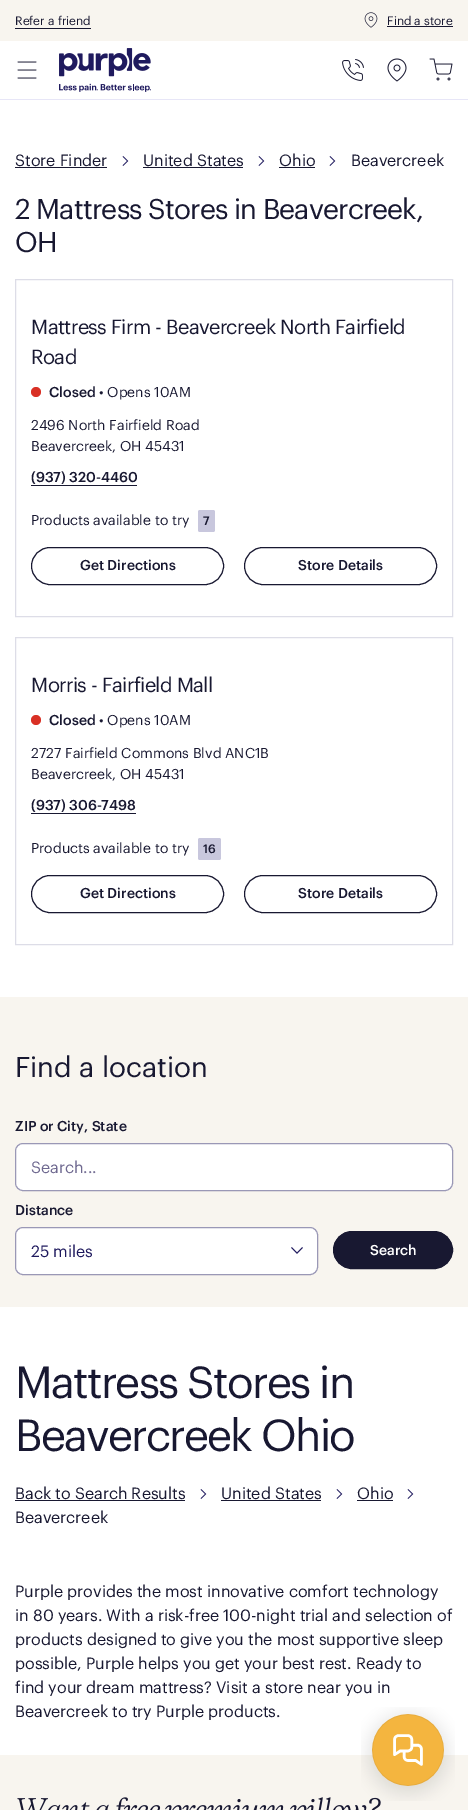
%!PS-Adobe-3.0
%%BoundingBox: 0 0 468 1810
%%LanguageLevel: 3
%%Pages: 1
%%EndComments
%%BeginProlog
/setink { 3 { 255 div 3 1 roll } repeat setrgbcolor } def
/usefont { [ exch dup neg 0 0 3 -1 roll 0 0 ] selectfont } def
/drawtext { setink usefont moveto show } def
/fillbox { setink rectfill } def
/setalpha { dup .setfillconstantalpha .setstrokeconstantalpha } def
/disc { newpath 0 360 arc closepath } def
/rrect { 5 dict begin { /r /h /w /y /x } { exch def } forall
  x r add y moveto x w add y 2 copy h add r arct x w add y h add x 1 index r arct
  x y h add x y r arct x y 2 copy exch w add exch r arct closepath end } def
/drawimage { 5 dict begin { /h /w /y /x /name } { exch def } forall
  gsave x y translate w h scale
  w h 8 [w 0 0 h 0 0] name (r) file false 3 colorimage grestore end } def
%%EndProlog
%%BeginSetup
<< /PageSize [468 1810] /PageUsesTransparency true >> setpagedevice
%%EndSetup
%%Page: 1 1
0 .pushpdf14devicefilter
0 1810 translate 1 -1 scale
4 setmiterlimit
0 0 468 1810 255 255 255 fillbox
0 0 468 41 248 245 239 fillbox
(Refer a friend) 15 25 /Graphik-Regular 12 24 24 49 drawtext
15 28 76 1 24 24 49 fillbox
(assets/img1.rgb) 364 12 14 16 drawimage
(Find a store) 387 25 /Graphik-Regular 12 24 24 49 drawtext
387 26 66 1 24 24 49 fillbox
0 99 468 1 231 230 247 fillbox
(assets/img2.rgb) 17 61 20 18 drawimage
(assets/img3.rgb) 59 48 92 44 drawimage
(assets/img4.rgb) 342 59 22 22 drawimage
(assets/img5.rgb) 387 58 20 24 drawimage
(assets/img6.rgb) 429 58 24 23 drawimage
(Store Finder) 15 166 /Graphik-Regular 16 24 24 49 drawtext
15 167 92 1 24 24 49 fillbox
(assets/img7.rgb) 122 156 7 10 drawimage
(United States) 143 166 /Graphik-Regular 16 24 24 49 drawtext
143 167 100 1 24 24 49 fillbox
(assets/img7.rgb) 258 156 7 10 drawimage
(Ohio) 279 166 /Graphik-Regular 16 24 24 49 drawtext
279 167 36 1 24 24 49 fillbox
(assets/img7.rgb) 329 156 7 10 drawimage
(Beavercreek) 351 166 /Graphik-Regular 16 24 24 49 drawtext
/Graphik-Regular 28 usefont
15 219 moveto -0.85 0 (2 Mattress Stores in Beavercreek,) ashow
15 252 moveto -0.85 0 (OH) ashow
221 221 231 setink
15.5 279.5 437 337 rectstroke
/Graphik-Regular 20 usefont
24 24 49 setink
31 334 moveto -0.6 0 (Mattress Firm - Beavercreek North Fairfield) ashow
31 364 moveto -0.6 0 (Road) ashow
217 48 37 setink
36 392 5 disc fill
(Closed) 49 397 /Graphik-Medium 14 24 24 49 drawtext
(• Opens 10AM) 99 397 /Graphik-Regular 14 24 24 49 drawtext
(2496 North Fairfield Road) 31 430 /Graphik-Regular 14 24 24 49 drawtext
(Beavercreek, OH 45431) 31 451 /Graphik-Regular 14 24 24 49 drawtext
(\(937\) 320-4460) 31 482 /Graphik-Medium 14 24 24 49 drawtext
31 485 106 1 24 24 49 fillbox
(Products available to try) 31 525 /Graphik-Regular 14 24 24 49 drawtext
200 199 221 setink
198 510 17 22 2 rrect fill
(7) 203 525 /Graphik-Medium 12 24 24 49 drawtext
31.5 547.5 192 37 18.5 rrect stroke
(Get Directions) 80 570 /Graphik-Medium 14 24 24 49 drawtext
244.5 547.5 192 37 18.5 rrect stroke
(Store Details) 298 570 /Graphik-Medium 14 24 24 49 drawtext
221 221 231 setink
15.5 637.5 437 307 rectstroke
/Graphik-Regular 20 usefont
24 24 49 setink
31 692 moveto -0.6 0 (Morris - Fairfield Mall) ashow
217 48 37 setink
36 720 5 disc fill
(Closed) 49 725 /Graphik-Medium 14 24 24 49 drawtext
(• Opens 10AM) 99 725 /Graphik-Regular 14 24 24 49 drawtext
(2727 Fairfield Commons Blvd ANC1B) 31 758 /Graphik-Regular 14 24 24 49 drawtext
(Beavercreek, OH 45431) 31 779 /Graphik-Regular 14 24 24 49 drawtext
(\(937\) 306-7498) 31 810 /Graphik-Medium 14 24 24 49 drawtext
31 813 105 1 24 24 49 fillbox
(Products available to try) 31 853 /Graphik-Regular 14 24 24 49 drawtext
200 199 221 setink
198 838 23 22 2 rrect fill
(16) 203 853 /Graphik-Medium 12 24 24 49 drawtext
31.5 875.5 192 37 18.5 rrect stroke
(Get Directions) 80 898 /Graphik-Medium 14 24 24 49 drawtext
244.5 875.5 192 37 18.5 rrect stroke
(Store Details) 298 898 /Graphik-Medium 14 24 24 49 drawtext
0 997 468 310 248 245 239 fillbox
(Find a location) 15 1077 /Graphik-Regular 28 24 24 49 drawtext
(ZIP or City, State) 15 1131 /Graphik-Medium 14 24 24 49 drawtext
255 255 255 setink
15 1143 438 48 8 rrect fill
0.45 setalpha
31 26 94 setink
15.5 1143.5 437 47 7.5 rrect stroke
1 setalpha
(Search...) 31 1173 /Graphik-Regular 16 111 105 144 drawtext
(Distance) 15 1215 /Graphik-Medium 14 24 24 49 drawtext
255 255 255 setink
15 1227 303 48 8 rrect fill
0.45 setalpha
31 26 94 setink
15.5 1227.5 302 47 7.5 rrect stroke
1 setalpha
(25 miles) 31 1257 /Graphik-Regular 16 31 26 94 drawtext
(assets/img8.rgb) 291 1247 12 7 drawimage
24 24 49 setink
333.5 1231.5 119 37 18.5 rrect gsave fill grestore
stroke
(Search) 370 1255 /Graphik-Medium 14 255 255 255 drawtext
/Graphik-Regular 44 usefont
24 24 49 setink
15 1398 moveto -1.75 0 (Mattress Stores in) ashow
15 1451 moveto -1.75 0 (Beavercreek Ohio) ashow
(Back to Search Results) 15 1499 /Graphik-Regular 16 24 24 49 drawtext
15 1500 170 1 24 24 49 fillbox
(assets/img7.rgb) 200 1489 7 10 drawimage
(United States) 221 1499 /Graphik-Regular 16 24 24 49 drawtext
221 1500 100 1 24 24 49 fillbox
(assets/img7.rgb) 336 1489 7 10 drawimage
(Ohio) 357 1499 /Graphik-Regular 16 24 24 49 drawtext
357 1500 36 1 24 24 49 fillbox
(assets/img7.rgb) 407 1489 7 10 drawimage
(Beavercreek) 15 1523 /Graphik-Regular 16 24 24 49 drawtext
(Purple provides the most innovative comfort technology) 15 1597 /Graphik-Regular 16 24 24 49 drawtext
(in 80 years. With a risk-free 100-night trial and selection of) 15 1621 /Graphik-Regular 16 24 24 49 drawtext
(products designed to give you the most supportive sleep) 15 1645 /Graphik-Regular 16 24 24 49 drawtext
(possible, Purple helps you get your best rest. Ready to) 15 1669 /Graphik-Regular 16 24 24 49 drawtext
(find your dream mattress? Visit a store near you in) 15 1693 /Graphik-Regular 16 24 24 49 drawtext
(Beavercreek to try Purple products.) 15 1717 /Graphik-Regular 16 24 24 49 drawtext
0 1755 468 55 248 245 239 fillbox
(assets/img10.rgb) 17 1797 364 13 drawimage
(assets/img9.rgb) 361 1707 94 94 drawimage
.poppdf14devicefilter showpage
%%EOF
